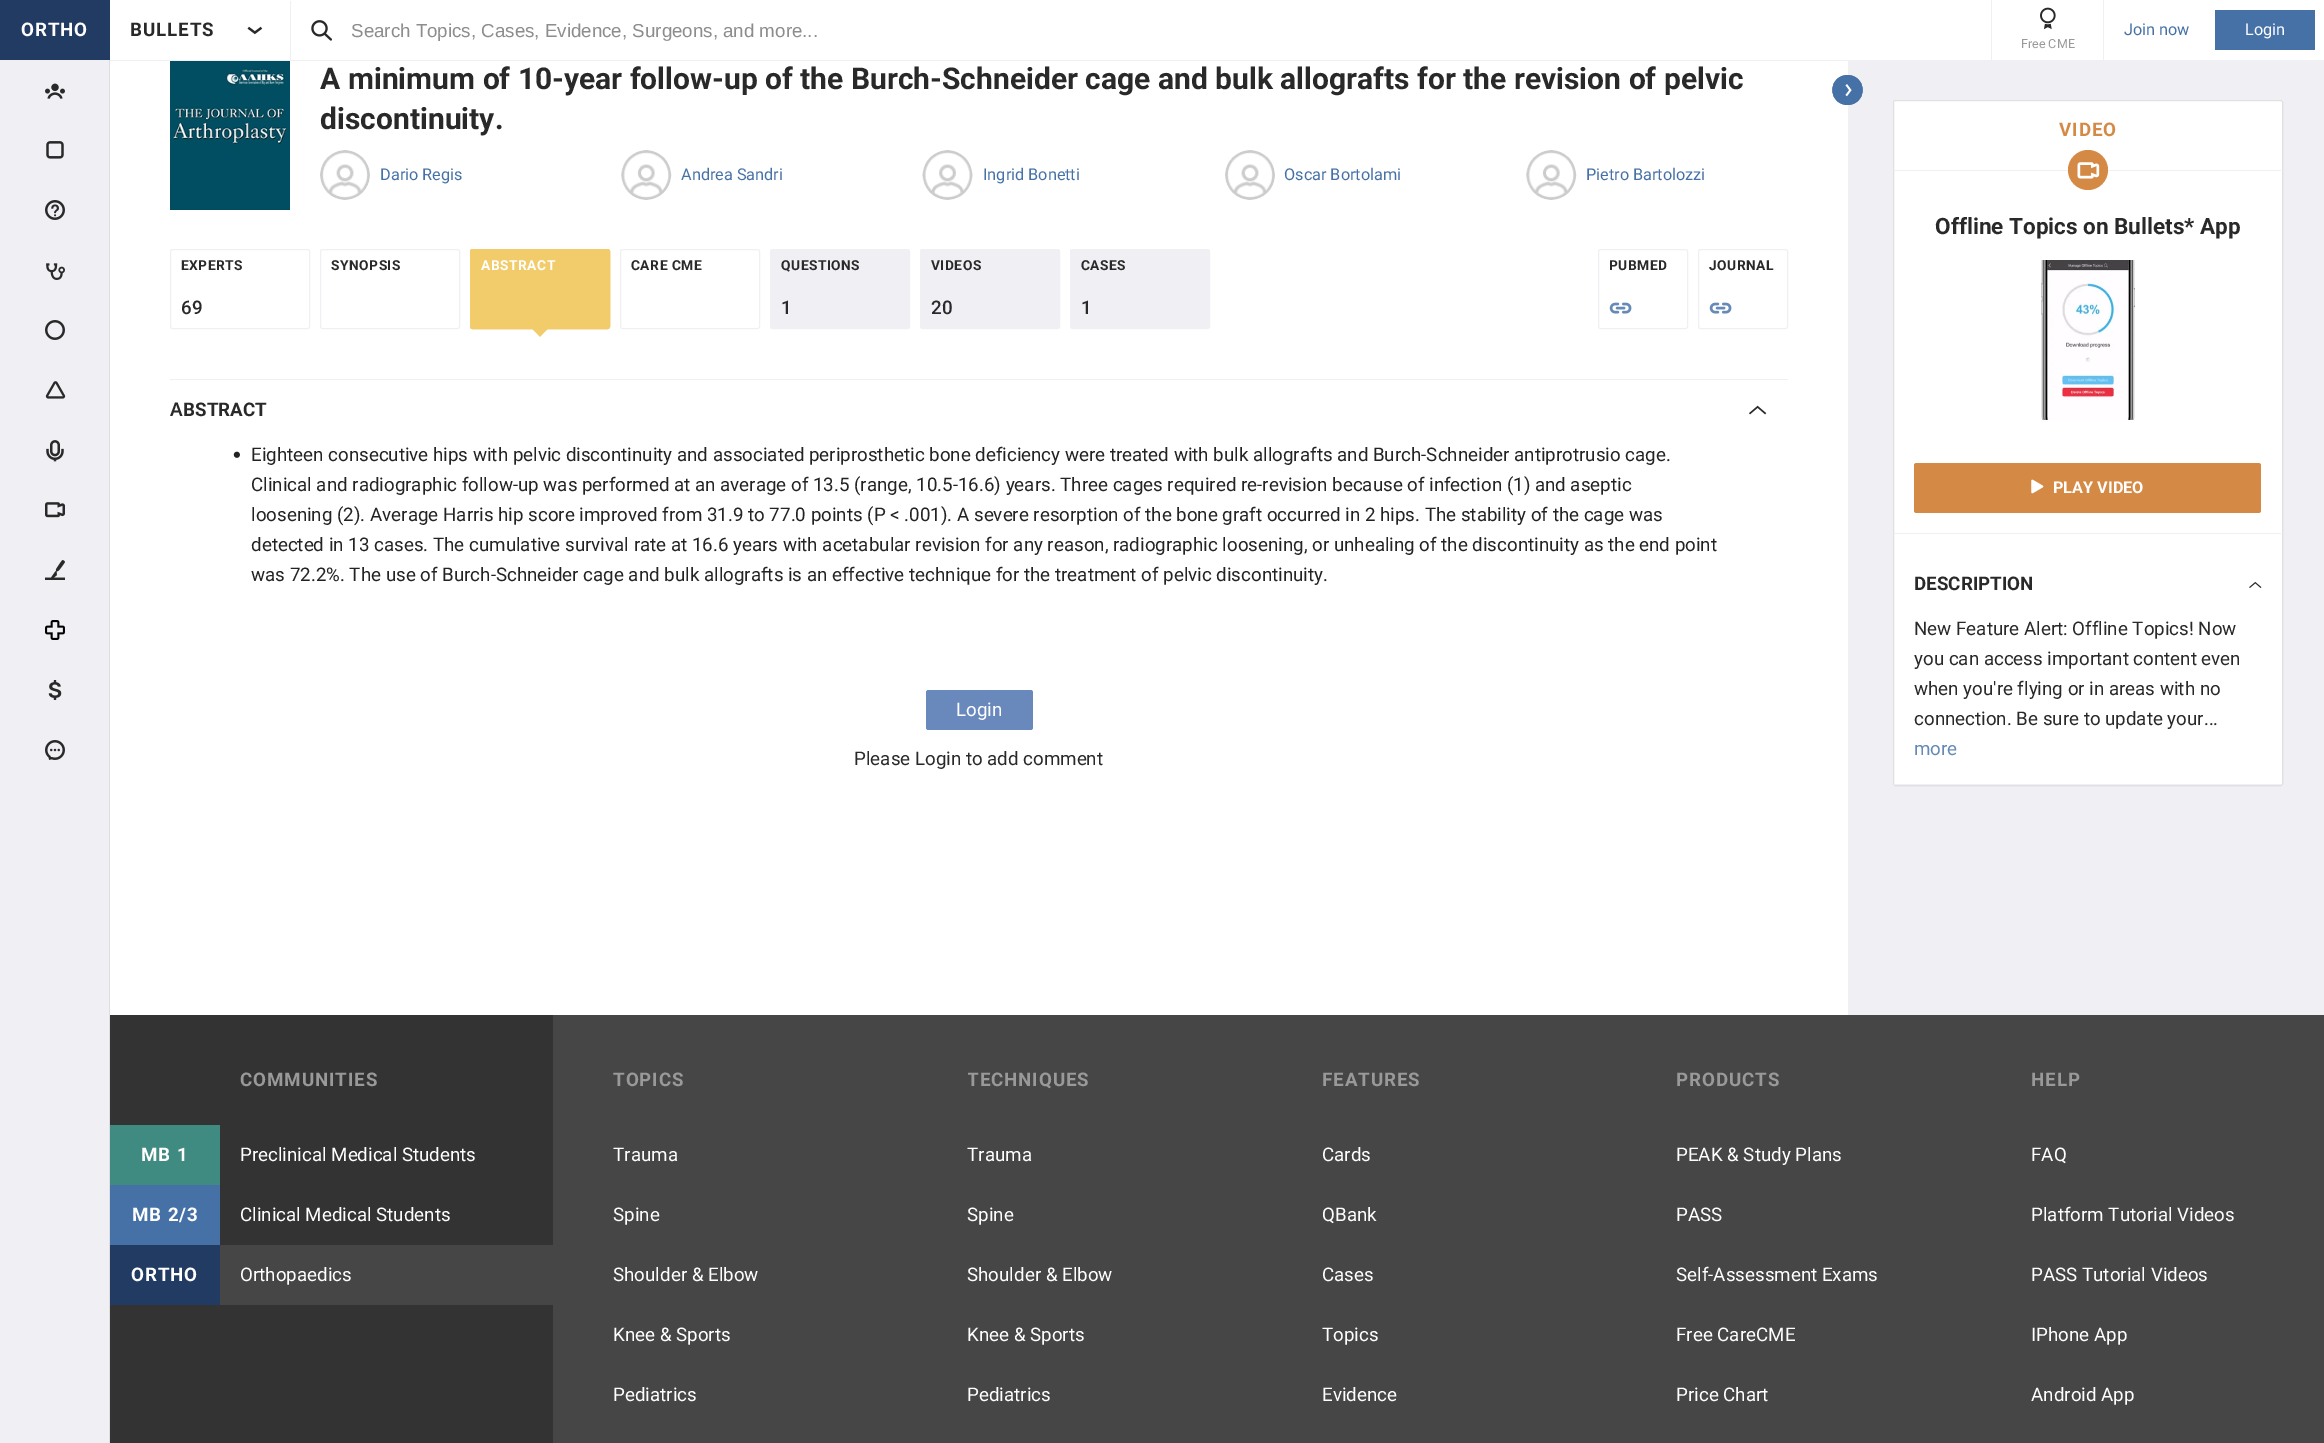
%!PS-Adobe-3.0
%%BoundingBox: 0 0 2324 1443
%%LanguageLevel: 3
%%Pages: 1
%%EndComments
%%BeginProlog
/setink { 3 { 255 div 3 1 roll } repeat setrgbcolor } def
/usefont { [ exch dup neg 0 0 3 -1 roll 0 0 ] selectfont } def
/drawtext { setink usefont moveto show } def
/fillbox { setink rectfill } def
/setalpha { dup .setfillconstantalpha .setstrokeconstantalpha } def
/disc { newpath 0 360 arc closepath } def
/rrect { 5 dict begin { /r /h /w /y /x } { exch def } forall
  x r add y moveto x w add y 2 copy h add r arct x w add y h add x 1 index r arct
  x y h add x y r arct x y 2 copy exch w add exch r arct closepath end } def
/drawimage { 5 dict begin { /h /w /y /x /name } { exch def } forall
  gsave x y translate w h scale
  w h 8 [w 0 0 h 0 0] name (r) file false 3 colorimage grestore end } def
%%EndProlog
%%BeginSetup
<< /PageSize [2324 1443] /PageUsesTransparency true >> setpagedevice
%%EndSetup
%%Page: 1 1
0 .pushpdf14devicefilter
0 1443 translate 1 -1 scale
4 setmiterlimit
0 0 2324 1443 239 239 244 fillbox
110 0 2214 60 255 255 255 fillbox
0 0 110 60 34 59 99 fillbox
/Roboto-Bold 18.75 usefont
255 255 255 setink
21 36 moveto 0.9 0 (ORTHO) ashow
41 41 41 setink
130 36 moveto 0.9 0 (BULLETS) ashow
(assets/img1.rgb) 247 26 16 9 drawimage
290 1 1 59 239 239 244 fillbox
(assets/img2.rgb) 311 20 21 21 drawimage
(Search Topics, Cases, Evidence, Surgeons, and more...) 351 37 /LiberationSans-Regular 18.75 141 141 141 drawtext
(Join now) 2124 35 /Roboto-Regular 16.25 69 113 167 drawtext
2215 10 100 40 69 113 167 fillbox
(Login) 2245 35 /Roboto-Regular 16.25 255 255 255 drawtext
1991 0 1 60 239 239 244 fillbox
2103 0 1 60 239 239 244 fillbox
(assets/img3.rgb) 2040 7 16 23 drawimage
(Free CME) 2021 48 /Roboto-Regular 12.5 153 153 153 drawtext
109 60 1 1383 222 222 226 fillbox
(assets/img4.rgb) 45 83 20 16 drawimage
(assets/img5.rgb) 46 141 18 18 drawimage
(assets/img6.rgb) 45 200 20 20 drawimage
(assets/img7.rgb) 46 263 19 17 drawimage
(assets/img8.rgb) 45 320 20 20 drawimage
(assets/img9.rgb) 45 381 21 18 drawimage
(assets/img10.rgb) 46 440 18 22 drawimage
(assets/img11.rgb) 45 502 20 16 drawimage
(assets/img12.rgb) 45 560 20 20 drawimage
(assets/img13.rgb) 45 620 20 20 drawimage
(assets/img14.rgb) 48 680 14 20 drawimage
(assets/img15.rgb) 45 740 20 20 drawimage
110 61 1738 954 255 255 255 fillbox
(assets/img16.rgb) 170 61 120 149 drawimage
(A minimum of 10-year follow-up of the Burch-Schneider cage and bulk allografts for the revision of pelvic) 320 89 /Roboto-Bold 30 41 41 41 drawtext
(discontinuity.) 320 129 /Roboto-Bold 30 41 41 41 drawtext
(assets/img17.rgb) 320 150 50 50 drawimage
(Dario Regis) 380 180 /Roboto-Regular 16.25 69 113 167 drawtext
(assets/img18.rgb) 621 150 51 50 drawimage
(Andrea Sandri) 681 180 /Roboto-Regular 16.25 69 113 167 drawtext
(assets/img19.rgb) 922 150 51 50 drawimage
(Ingrid Bonetti) 983 180 /Roboto-Regular 16.25 69 113 167 drawtext
(assets/img20.rgb) 1225 150 50 50 drawimage
(Oscar Bortolami) 1284 180 /Roboto-Regular 16.25 69 113 167 drawtext
(assets/img18.rgb) 1526 150 51 50 drawimage
(Pietro Bartolozzi) 1586 180 /Roboto-Regular 16.25 69 113 167 drawtext
239 239 244 setink
170.5 249.5 139 79 2 rrect stroke
/Roboto-Bold 13.75 usefont
41 41 41 setink
181 270 moveto 0.5 0 (EXPERTS) ashow
/Roboto-Medium 18.75 usefont
181 314 moveto 0.5 0 (69) ashow
239 239 244 setink
320.5 249.5 139 79 2 rrect stroke
/Roboto-Bold 13.75 usefont
41 41 41 setink
331 270 moveto 0.5 0 (SYNOPSIS) ashow
242 204 106 setink
470.5 249.5 139 79 2 rrect gsave fill grestore
stroke
3 setlinewidth
471.5 250.5 137 77 1 rrect stroke
255 255 255 setink
481 270 moveto 0.5 0 (ABSTRACT) ashow
242 204 106 setink
540 318.5 moveto 549 327.5 lineto 540 336.5 lineto 531 327.5 lineto closepath fill
547 325.5 moveto 549 327.5 lineto 540 336.5 lineto 538 334.5 lineto closepath fill
533 325.5 moveto 542 334.5 lineto 540 336.5 lineto 531 327.5 lineto closepath fill
239 239 244 setink
1 setlinewidth
620.5 249.5 139 79 2 rrect stroke
41 41 41 setink
631 270 moveto 0.5 0 (CARE CME) ashow
239 239 244 setink
770.5 249.5 139 79 2 rrect gsave fill grestore
stroke
41 41 41 setink
781 270 moveto 0.5 0 (QUESTIONS) ashow
/Roboto-Medium 18.75 usefont
781 314 moveto 0.5 0 (1) ashow
239 239 244 setink
920.5 249.5 139 79 2 rrect gsave fill grestore
stroke
/Roboto-Bold 13.75 usefont
41 41 41 setink
931 270 moveto 0.5 0 (VIDEOS) ashow
/Roboto-Medium 18.75 usefont
931 314 moveto 0.5 0 (20) ashow
239 239 244 setink
1070.5 249.5 139 79 2 rrect gsave fill grestore
stroke
/Roboto-Bold 13.75 usefont
41 41 41 setink
1081 270 moveto 0.5 0 (CASES) ashow
/Roboto-Medium 18.75 usefont
1081 314 moveto 0.5 0 (1) ashow
239 239 244 setink
1598.5 249.5 89 79 2 rrect stroke
/Roboto-Bold 13.75 usefont
41 41 41 setink
1609 270 moveto 0.5 0 (PUBMED) ashow
(assets/img21.rgb) 1609 302 23 12 drawimage
239 239 244 setink
1698.5 249.5 89 79 2 rrect stroke
41 41 41 setink
1709 270 moveto 0.5 0 (JOURNAL) ashow
(assets/img21.rgb) 1709 302 23 12 drawimage
170 379 1618 1 239 239 244 fillbox
(A) 170 416 /NotoSans-SemiBold 18.75 41 41 41 drawtext
(BSTRACT) 183 416 /Roboto-Bold 18.75 41 41 41 drawtext
(assets/img22.rgb) 1749 405 18 10 drawimage
(assets/img23.rgb) 233 451 7 7 drawimage
(Eighteen consecutive hips with pelvic discontinuity and associated periprosthetic bone deficiency were treated with bulk allografts and Burch-Schneider antiprotrusio cage.) 251 461 /Roboto-Regular 18.75 35 35 35 drawtext
(Clinical and radiographic follow-up was performed at an average of 13.5 \(range, 10.5-16.6\) years. Three cages required re-revision because of infection \(1\) and aseptic) 251 491 /Roboto-Regular 18.75 35 35 35 drawtext
(loosening \(2\). Average Harris hip score improved from 31.9 to 77.0 points \(P < .001\). A severe resorption of the bone graft occurred in 2 hips. The stability of the cage was) 251 521 /Roboto-Regular 18.75 35 35 35 drawtext
(detected in 13 cases. The cumulative survival rate at 16.6 years with acetabular revision for any reason, radiographic loosening, or unhealing of the discontinuity as the end point) 251 551 /Roboto-Regular 18.75 35 35 35 drawtext
(was 72.2%. The use of Burch-Schneider cage and bulk allografts is an effective technique for the treatment of pelvic discontinuity.) 251 581 /Roboto-Regular 18.75 35 35 35 drawtext
105 137 189 setink
926 690 107 40 2.5 rrect fill
(Login) 956 716 /Roboto-Regular 18.75 255 255 255 drawtext
(Please Login to add comment) 854 765 /Roboto-Regular 18.75 41 41 41 drawtext
69 113 167 setink
1832.5 90 moveto 1832.5 81.5 1839 75 1847.5 75 curveto 1856 75 1862.5 81.5 1862.5 90 curveto 1862.5 98.5 1856 105 1847.5 105 curveto 1839 105 1832.5 98.5 1832.5 90 curveto closepath fill
1.2 setlinewidth
1833 90 moveto 1833 71 1862 71 1862 90 curveto 1862 109 1833 109 1833 90 curveto closepath stroke
(assets/img24.rgb) 1845 84 7 13 drawimage
255 255 255 setink
1893 100 390 686 2.5 rrect fill
0.3 setalpha
153 153 153 setink
1 setlinewidth
1893.5 100.5 389 685 2 rrect stroke
1 setalpha
1894 170 387 1 239 239 244 fillbox
/Roboto-Bold 18.75 usefont
212 137 69 setink
2059 136 moveto 0.9 0 (VIDEO) ashow
2088 170 20 disc fill
(assets/img25.rgb) 2077 162 23 17 drawimage
1894 533 387 1 239 239 244 fillbox
(Offline Topics on Bullets* App) 1935 234 /Roboto-Bold 22.5 41 41 41 drawtext
(assets/img26.rgb) 2041 260 94 160 drawimage
212 137 69 setink
1914 463 347 50 2.5 rrect fill
(assets/img27.rgb) 2031 479 13 15 drawimage
(PLAY VIDEO) 2053 493 /Roboto-Bold 16.25 255 255 255 drawtext
1894 784 387 1 239 239 244 fillbox
(DESCRIPTION) 1914 590 /Roboto-Bold 18.75 41 41 41 drawtext
(assets/img28.rgb) 2249 581 13 7 drawimage
(New Feature Alert: Offline Topics! Now) 1914 635 /Roboto-Regular 18.75 41 41 41 drawtext
(you can access important content even) 1914 665 /Roboto-Regular 18.75 41 41 41 drawtext
(when you're flying or in areas with no) 1914 695 /Roboto-Regular 18.75 41 41 41 drawtext
(connection. Be sure to update your...) 1914 725 /Roboto-Regular 18.75 41 41 41 drawtext
(more) 1914 755 /Roboto-Regular 18.75 101 138 182 drawtext
553 1015 1771 428 70 70 70 fillbox
110 1015 443 428 51 51 51 fillbox
/Roboto-Bold 18.75 usefont
153 153 153 setink
240 1086 moveto 0.9 0 (COMMUNITIES) ashow
110 1125 110 60 63 138 129 fillbox
255 255 255 setink
141 1161 moveto 0.9 0 (MB 1) ashow
(Preclinical Medical Students) 240 1161 /Roboto-Regular 18.75 255 255 255 drawtext
110 1185 110 60 69 113 167 fillbox
/Roboto-Bold 18.75 usefont
255 255 255 setink
132 1221 moveto 0.9 0 (MB 2/3) ashow
(Clinical Medical Students) 240 1221 /Roboto-Regular 18.75 255 255 255 drawtext
220 1245 333 60 70 70 70 fillbox
110 1245 110 60 34 59 99 fillbox
/Roboto-Bold 18.75 usefont
255 255 255 setink
131 1281 moveto 0.9 0 (ORTHO) ashow
(Orthopaedics) 240 1281 /Roboto-Regular 18.75 255 255 255 drawtext
/Roboto-Bold 18.75 usefont
153 153 153 setink
613 1086 moveto 0.9 0 (TOPICS) ashow
(Trauma) 613 1161 /Roboto-Regular 18.75 255 255 255 drawtext
(Spine) 613 1221 /Roboto-Regular 18.75 255 255 255 drawtext
(Shoulder & Elbow) 613 1281 /Roboto-Regular 18.75 255 255 255 drawtext
(Knee & Sports) 613 1341 /Roboto-Regular 18.75 255 255 255 drawtext
(Pediatrics) 613 1401 /Roboto-Regular 18.75 255 255 255 drawtext
gsave
968 1065 293 60 rectclip
/Roboto-Bold 18.75 usefont
153 153 153 setink
967 1086 moveto 0.9 0 (TECHNIQUES) ashow
grestore
(Trauma) 967 1161 /Roboto-Regular 18.75 255 255 255 drawtext
(Spine) 967 1221 /Roboto-Regular 18.75 255 255 255 drawtext
(Shoulder & Elbow) 967 1281 /Roboto-Regular 18.75 255 255 255 drawtext
(Knee & Sports) 967 1341 /Roboto-Regular 18.75 255 255 255 drawtext
(Pediatrics) 967 1401 /Roboto-Regular 18.75 255 255 255 drawtext
/Roboto-Bold 18.75 usefont
153 153 153 setink
1322 1086 moveto 0.9 0 (FEATURES) ashow
(Cards) 1322 1161 /Roboto-Regular 18.75 255 255 255 drawtext
(QBank) 1322 1221 /Roboto-Regular 18.75 255 255 255 drawtext
(Cases) 1322 1281 /Roboto-Regular 18.75 255 255 255 drawtext
(Topics) 1322 1341 /Roboto-Regular 18.75 255 255 255 drawtext
(Evidence) 1322 1401 /Roboto-Regular 18.75 255 255 255 drawtext
/Roboto-Bold 18.75 usefont
153 153 153 setink
1676 1086 moveto 0.9 0 (PRODUCTS) ashow
(PEAK & Study Plans) 1676 1161 /Roboto-Regular 18.75 255 255 255 drawtext
(PASS) 1676 1221 /Roboto-Regular 18.75 255 255 255 drawtext
(Self-Assessment Exams) 1676 1281 /Roboto-Regular 18.75 255 255 255 drawtext
(Free CareCME) 1676 1341 /Roboto-Regular 18.75 255 255 255 drawtext
(Price Chart) 1676 1401 /Roboto-Regular 18.75 255 255 255 drawtext
/Roboto-Bold 18.75 usefont
153 153 153 setink
2031 1086 moveto 0.9 0 (HELP) ashow
(FAQ) 2031 1161 /Roboto-Regular 18.75 255 255 255 drawtext
(Platform Tutorial Videos) 2031 1221 /Roboto-Regular 18.75 255 255 255 drawtext
(PASS Tutorial Videos) 2031 1281 /Roboto-Regular 18.75 255 255 255 drawtext
(IPhone App) 2031 1341 /Roboto-Regular 18.75 255 255 255 drawtext
(Android App) 2031 1401 /Roboto-Regular 18.75 255 255 255 drawtext
.poppdf14devicefilter showpage
%%EOF
